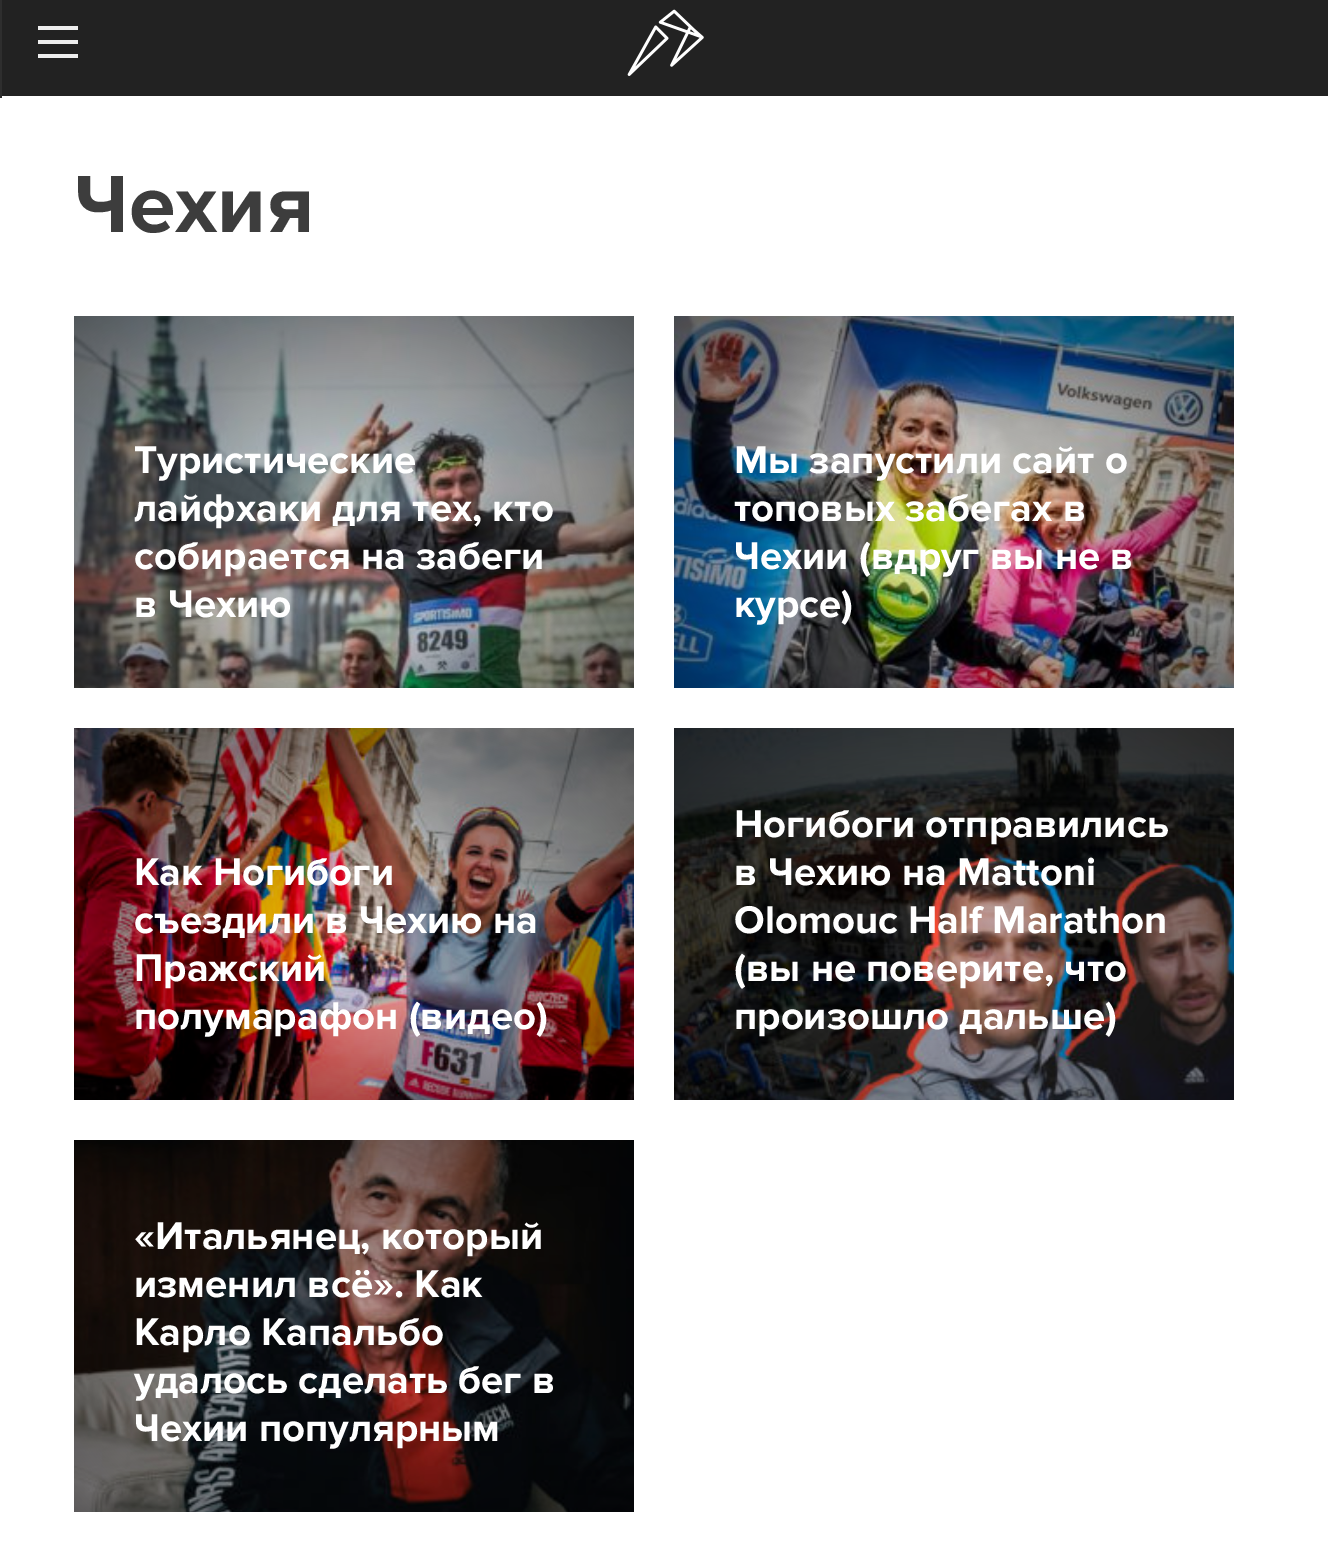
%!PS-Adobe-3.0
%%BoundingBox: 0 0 1328 1543
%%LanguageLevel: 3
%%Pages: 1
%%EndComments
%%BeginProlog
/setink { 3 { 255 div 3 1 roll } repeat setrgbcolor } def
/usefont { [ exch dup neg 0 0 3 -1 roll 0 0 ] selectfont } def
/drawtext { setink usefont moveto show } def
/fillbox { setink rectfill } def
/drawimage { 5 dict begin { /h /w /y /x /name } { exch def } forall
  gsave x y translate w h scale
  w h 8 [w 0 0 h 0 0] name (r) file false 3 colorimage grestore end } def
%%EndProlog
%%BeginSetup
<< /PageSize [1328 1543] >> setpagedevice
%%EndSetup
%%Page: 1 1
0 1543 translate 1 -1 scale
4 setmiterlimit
0 0 1328 1543 255 255 255 fillbox
2 0 1326 96 34 34 34 fillbox
0 0 2 98 46 46 46 fillbox
38 26 40 4 238 238 238 fillbox
38 40 40 4 238 238 238 fillbox
38 54 40 4 238 238 238 fillbox
(assets/img1.rgb) 627 9 77 67 drawimage
(Чехия) 74 232 /ProximaNova-Bold 84 61 61 61 drawtext
(assets/img2.rgb) 74 316 560 372 drawimage
(Туристические) 134 473 /ProximaNova-Bold 40 255 255 255 drawtext
(лайфхаки для тех, кто) 134 521 /ProximaNova-Bold 40 255 255 255 drawtext
(собирается на забеги) 134 569 /ProximaNova-Bold 40 255 255 255 drawtext
(в Чехию) 134 617 /ProximaNova-Bold 40 255 255 255 drawtext
(assets/img3.rgb) 674 316 560 372 drawimage
(Мы запустили сайт о) 734 473 /ProximaNova-Bold 40 255 255 255 drawtext
(топовых забегах в) 734 521 /ProximaNova-Bold 40 255 255 255 drawtext
(Чехии \(вдруг вы не в) 734 569 /ProximaNova-Bold 40 255 255 255 drawtext
(курсе\)) 734 617 /ProximaNova-Bold 40 255 255 255 drawtext
(assets/img4.rgb) 74 728 560 372 drawimage
(Как Ногибоги) 134 885 /ProximaNova-Bold 40 255 255 255 drawtext
(съездили в Чехию на) 134 933 /ProximaNova-Bold 40 255 255 255 drawtext
(Пражский) 134 981 /ProximaNova-Bold 40 255 255 255 drawtext
(полумарафон \(видео\)) 134 1029 /ProximaNova-Bold 40 255 255 255 drawtext
(assets/img5.rgb) 674 728 560 372 drawimage
(Ногибоги отправились) 734 837 /ProximaNova-Bold 40 255 255 255 drawtext
(в Чехию на Mattoni) 734 885 /ProximaNova-Bold 40 255 255 255 drawtext
(Olomouc Half Marathon) 734 933 /ProximaNova-Bold 40 255 255 255 drawtext
(\(вы не поверите, что) 734 981 /ProximaNova-Bold 40 255 255 255 drawtext
(произошло дальше\)) 734 1029 /ProximaNova-Bold 40 255 255 255 drawtext
(assets/img6.rgb) 74 1140 560 372 drawimage
(«Итальянец, который) 134 1249 /ProximaNova-Bold 40 255 255 255 drawtext
(изменил всё». Как) 134 1297 /ProximaNova-Bold 40 255 255 255 drawtext
(Карло Капальбо) 134 1345 /ProximaNova-Bold 40 255 255 255 drawtext
(удалось сделать бег в) 134 1393 /ProximaNova-Bold 40 255 255 255 drawtext
(Чехии популярным) 134 1441 /ProximaNova-Bold 40 255 255 255 drawtext
showpage
%%EOF
